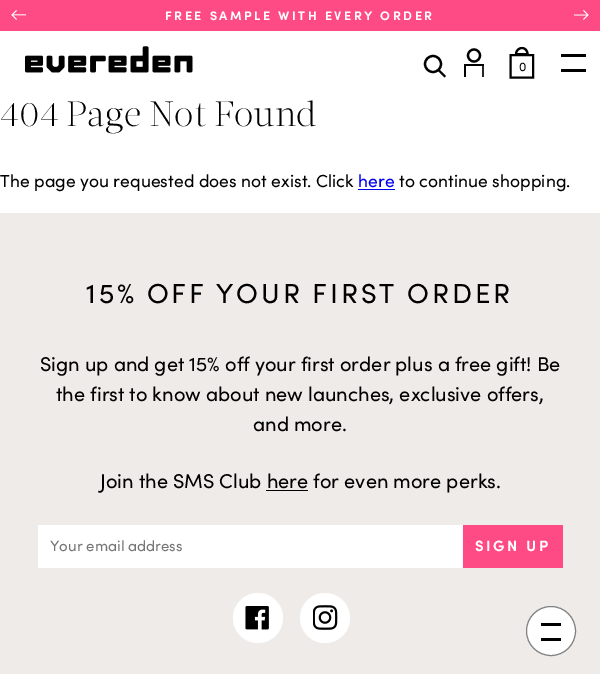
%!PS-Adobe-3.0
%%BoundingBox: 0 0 600 674
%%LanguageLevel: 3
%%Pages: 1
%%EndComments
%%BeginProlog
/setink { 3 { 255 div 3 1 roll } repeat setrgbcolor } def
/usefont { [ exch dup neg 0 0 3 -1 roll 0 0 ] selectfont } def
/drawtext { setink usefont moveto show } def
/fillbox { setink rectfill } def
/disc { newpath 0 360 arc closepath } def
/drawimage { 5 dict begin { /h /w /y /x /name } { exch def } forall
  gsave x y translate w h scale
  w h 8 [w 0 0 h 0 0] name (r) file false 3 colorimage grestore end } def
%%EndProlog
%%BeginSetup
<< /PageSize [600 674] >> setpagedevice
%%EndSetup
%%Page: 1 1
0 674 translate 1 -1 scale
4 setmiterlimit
0 0 600 674 255 255 255 fillbox
0 0 600 31 255 75 133 fillbox
(assets/img1.rgb) 11 10 15 10 drawimage
/Sofia-Bold 12.5 usefont
255 255 255 setink
165 20 moveto 2.5 0 (FREE SAMPLE WITH EVERY ORDER) ashow
(assets/img2.rgb) 574 10 15 10 drawimage
(assets/img3.rgb) 25 46 168 27 drawimage
0 0 0 setink
2.2 setlinewidth
433 64 8 disc stroke
439.5 69.5 moveto 446 76 lineto 444.5 77.5 lineto 438 71 lineto closepath fill
464 64 20 2 0 0 0 fillbox
464 66 2 11 0 0 0 fillbox
482 66 2 11 38 38 38 fillbox
0 0 0 setink
474 55.5 6 disc stroke
2.1 setlinewidth
510.5 55 moveto 533 55 lineto 533 77.5 lineto 510.5 77.5 lineto closepath 522 48 moveto 518.5 48 516 51 516 54 curveto 527.5 54 lineto 527.5 50.5 525 48 522 48 curveto closepath stroke
(0) 519 71 /Sofia-Regular 12.5 0 0 0 drawtext
561 54 25 3 0 0 0 fillbox
561 69 25 3 0 0 0 fillbox
(404 Page Not Found) 0 126 /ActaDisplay-Light 35 0 0 0 drawtext
(The page you requested does not exist. Click) 0 187 /Sofia-Regular 17.5 0 0 0 drawtext
(here) 358 187 /Sofia-Regular 17.5 0 0 238 drawtext
358 189 37 1 0 0 238 fillbox
(to continue shopping.) 399 187 /Sofia-Regular 17.5 0 0 0 drawtext
0 213 600 461 239 235 232 fillbox
/Sofia-Regular 27.5 usefont
0 0 0 setink
86 303 moveto 2.9 0 (15% OFF YOUR FIRST ORDER) ashow
(Sign up and get 15% off your first order plus a free gift! Be) 40 371 /Sofia-Regular 20 0 0 0 drawtext
(the first to know about new launches, exclusive offers,) 56 401 /Sofia-Regular 20 0 0 0 drawtext
(and more.) 253 431 /Sofia-Regular 20 0 0 0 drawtext
(Join the SMS Club here for even more perks.) 100 488 /Sofia-Regular 20 0 0 0 drawtext
266 490 42 1 0 0 0 fillbox
38 525 425 43 255 255 255 fillbox
(Your email address) 50 551 /Sofia-Regular 15 117 117 117 drawtext
463 525 100 43 255 75 133 fillbox
/Sofia-Bold 15 usefont
255 255 255 setink
475 551 moveto 2.5 0 (SIGN UP) ashow
258 618 25 disc fill
(assets/img4.rgb) 245 606 24 24 drawimage
325 618 25 disc fill
(assets/img5.rgb) 313 605 25 25 drawimage
551 631 24.5 disc gsave fill grestore
128 128 128 setink
1 setlinewidth
stroke
541 623 20 3 0 0 0 fillbox
541 638 20 3 0 0 0 fillbox
showpage
%%EOF
